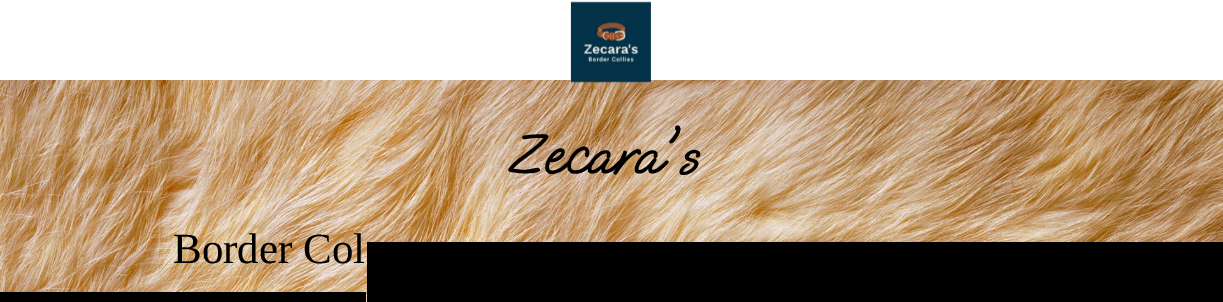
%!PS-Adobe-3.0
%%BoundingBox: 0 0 1223 302
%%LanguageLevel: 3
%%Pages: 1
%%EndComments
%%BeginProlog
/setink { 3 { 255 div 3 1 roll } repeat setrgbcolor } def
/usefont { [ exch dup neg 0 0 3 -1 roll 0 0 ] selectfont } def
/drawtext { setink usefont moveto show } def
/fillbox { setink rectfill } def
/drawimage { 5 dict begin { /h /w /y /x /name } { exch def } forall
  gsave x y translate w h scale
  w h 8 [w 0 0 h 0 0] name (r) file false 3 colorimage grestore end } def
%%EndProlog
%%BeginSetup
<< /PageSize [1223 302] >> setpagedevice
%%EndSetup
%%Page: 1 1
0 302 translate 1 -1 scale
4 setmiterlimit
0 0 1223 302 255 255 255 fillbox
(assets/img2.rgb) 0 80 1223 222 drawimage
(assets/img1.rgb) 570 1 81 82 drawimage
(Zecara's) 508 173 /OoohBaby-Bold 61 0 0 0 drawtext
(Border Col) 173 263 /LiberationSerif-Regular 43 0 0 0 drawtext
0 292 366 10 0 0 0 fillbox
367 242 856 60 0 0 0 fillbox
showpage
%%EOF
